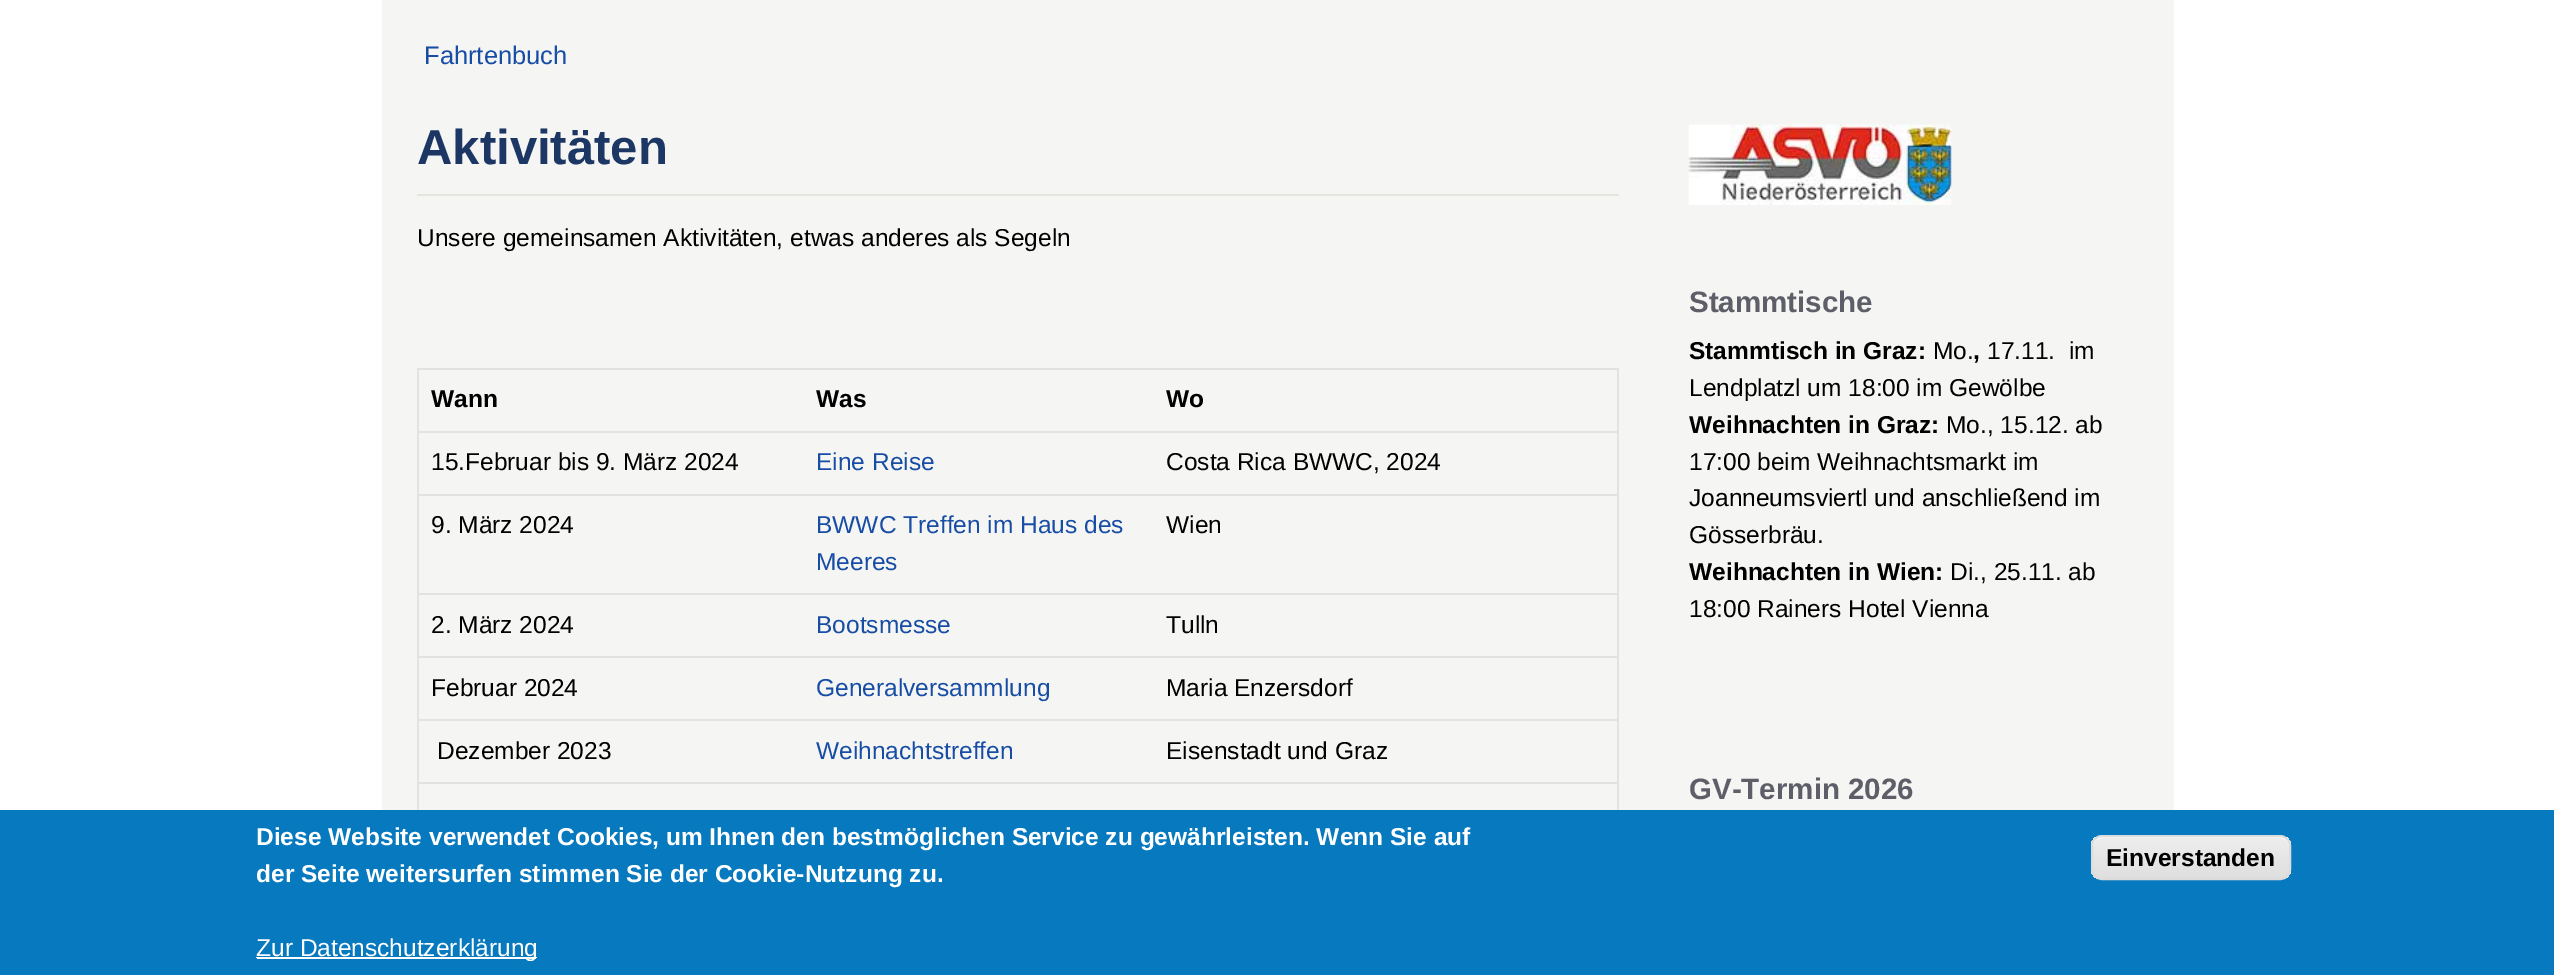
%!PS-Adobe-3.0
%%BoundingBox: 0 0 2554 975
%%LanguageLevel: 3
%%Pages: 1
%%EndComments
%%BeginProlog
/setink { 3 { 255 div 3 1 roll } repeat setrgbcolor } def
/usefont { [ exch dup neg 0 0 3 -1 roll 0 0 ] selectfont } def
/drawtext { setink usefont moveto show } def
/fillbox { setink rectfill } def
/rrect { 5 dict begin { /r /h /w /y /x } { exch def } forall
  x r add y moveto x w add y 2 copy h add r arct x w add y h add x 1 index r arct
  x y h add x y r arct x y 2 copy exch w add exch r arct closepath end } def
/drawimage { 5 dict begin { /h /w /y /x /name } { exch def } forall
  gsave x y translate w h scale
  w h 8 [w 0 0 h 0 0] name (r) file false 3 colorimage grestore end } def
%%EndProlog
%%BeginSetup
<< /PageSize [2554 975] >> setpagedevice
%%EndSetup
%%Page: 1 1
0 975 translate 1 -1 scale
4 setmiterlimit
0 0 2554 975 255 255 255 fillbox
382 0 1792 810 245 245 244 fillbox
(Fahrtenbuch) 424 64 /LiberationSans-Regular 25.5 23 77 164 drawtext
(Aktivitäten) 417 164 /LiberationSans-Bold 49 28 55 99 drawtext
417 194 1202 2 230 228 222 fillbox
(Unsere gemeinsamen Aktivitäten, etwas anderes als Segeln) 417 246 /LiberationSans-Regular 24.5 0 0 0 drawtext
417 368 1202 2 228 226 224 fillbox
1617 368 2 442 228 226 224 fillbox
417 368 2 442 228 226 224 fillbox
(Wann) 431 407 /LiberationSans-Bold 24.5 0 0 0 drawtext
(Was) 816 407 /LiberationSans-Bold 24.5 0 0 0 drawtext
417 431 1202 2 228 226 224 fillbox
(Wo) 1166 407 /LiberationSans-Bold 24.5 0 0 0 drawtext
(15.Februar bis 9. März 2024) 431 470 /LiberationSans-Regular 24.5 0 0 0 drawtext
(Eine Reise) 816 470 /LiberationSans-Regular 24.5 23 77 164 drawtext
417 494 1202 2 228 226 224 fillbox
(Costa Rica BWWC, 2024) 1166 470 /LiberationSans-Regular 24.5 0 0 0 drawtext
(9. März 2024) 431 533 /LiberationSans-Regular 24.5 0 0 0 drawtext
(BWWC Treffen im Haus des) 816 533 /LiberationSans-Regular 24.5 23 77 164 drawtext
(Meeres) 816 570 /LiberationSans-Regular 24.5 23 77 164 drawtext
417 593 1202 2 228 226 224 fillbox
(Wien) 1166 533 /LiberationSans-Regular 24.5 0 0 0 drawtext
(2. März 2024) 431 633 /LiberationSans-Regular 24.5 0 0 0 drawtext
(Bootsmesse) 816 633 /LiberationSans-Regular 24.5 23 77 164 drawtext
417 656 1202 2 228 226 224 fillbox
(Tulln) 1166 633 /LiberationSans-Regular 24.5 0 0 0 drawtext
(Februar 2024) 431 696 /LiberationSans-Regular 24.5 0 0 0 drawtext
(Generalversammlung) 816 696 /LiberationSans-Regular 24.5 23 77 164 drawtext
417 719 1202 2 228 226 224 fillbox
(Maria Enzersdorf) 1166 696 /LiberationSans-Regular 24.5 0 0 0 drawtext
(Dezember 2023) 437 759 /LiberationSans-Regular 24.5 0 0 0 drawtext
(Weihnachtstreffen) 816 759 /LiberationSans-Regular 24.5 23 77 164 drawtext
417 782 1202 2 228 226 224 fillbox
(Eisenstadt und Graz) 1166 759 /LiberationSans-Regular 24.5 0 0 0 drawtext
(assets/img1.rgb) 1688 124 264 81 drawimage
(Stammtische) 1689 312 /LiberationSans-Bold 29.5 94 94 104 drawtext
(Stammtisch in Graz:) 1689 359 /LiberationSans-Bold 24.5 0 0 0 drawtext
(Mo.) 1933 359 /LiberationSans-Regular 24.5 0 0 0 drawtext
(,) 1973 359 /LiberationSans-Bold 24.5 0 0 0 drawtext
(17.11.  im) 1987 359 /LiberationSans-Regular 24.5 0 0 0 drawtext
(Lendplatzl um 18:00 im Gewölbe) 1689 396 /LiberationSans-Regular 24.5 0 0 0 drawtext
(Weihnachten in Graz:) 1689 433 /LiberationSans-Bold 24.5 0 0 0 drawtext
(Mo., 15.12. ab) 1946 433 /LiberationSans-Regular 24.5 0 0 0 drawtext
(17:00 beim Weihnachtsmarkt im) 1689 470 /LiberationSans-Regular 24.5 0 0 0 drawtext
(Joanneumsviertl und anschließend im) 1689 506 /LiberationSans-Regular 24.5 0 0 0 drawtext
(Gösserbräu.) 1689 543 /LiberationSans-Regular 24.5 0 0 0 drawtext
(Weihnachten in Wien:) 1689 580 /LiberationSans-Bold 24.5 0 0 0 drawtext
(Di., 25.11. ab) 1950 580 /LiberationSans-Regular 24.5 0 0 0 drawtext
(18:00 Rainers Hotel Vienna) 1689 617 /LiberationSans-Regular 24.5 0 0 0 drawtext
(GV-Termin 2026) 1689 799 /LiberationSans-Bold 29.5 94 94 104 drawtext
0 810 2554 165 7 121 191 fillbox
(Diese Website verwendet Cookies, um Ihnen den bestmöglichen Service zu gewährleisten. Wenn Sie auf) 256 845 /LiberationSans-Bold 24.5 255 255 255 drawtext
(der Seite weitersurfen stimmen Sie der Cookie-Nutzung zu.) 256 882 /LiberationSans-Bold 24.5 255 255 255 drawtext
gsave
256 933 281 28 7 rrect clip newpath
256 957 281 2 255 255 255 fillbox
(Zur Datenschutzerklärung) 256 956 /LiberationSans-Regular 24.5 255 255 255 drawtext
grestore
gsave
2091 835 200 45 11 rrect clip newpath
gsave 2091 837 moveto 2291 837 lineto 2291 879 lineto 2091 879 lineto closepath clip newpath
<< /ShadingType 2 /ColorSpace /DeviceRGB /Coords [2191 837 2191 879] /Extend [true true] /Function << /FunctionType 3 /Domain [0 1] /Functions [<< /FunctionType 2 /Domain [0 1] /C0 [0.929 0.929 0.929] /C1 [0.929 0.929 0.929] /N 1 >> << /FunctionType 2 /Domain [0 1] /C0 [0.929 0.929 0.929] /C1 [0.875 0.875 0.875] /N 1 >>] /Bounds [0.05] /Encode [0 1 0 1] >> >> shfill grestore
grestore
2102 838 moveto 2280 838 lineto 2285 838 2289 842 2289 847 curveto 2289 846 lineto 2289 841 2285 837 2280 837 curveto 2102 837 lineto 2097 837 2093 841 2093 846 curveto 2093 847 lineto 2093 842 2097 838 2102 838 curveto closepath fill
220 220 220 setink
2 setlinewidth
2092 836 198 43 10 rrect stroke
(Einverstanden) 2106 866 /LiberationSans-Bold 24.5 0 0 0 drawtext
showpage
%%EOF
